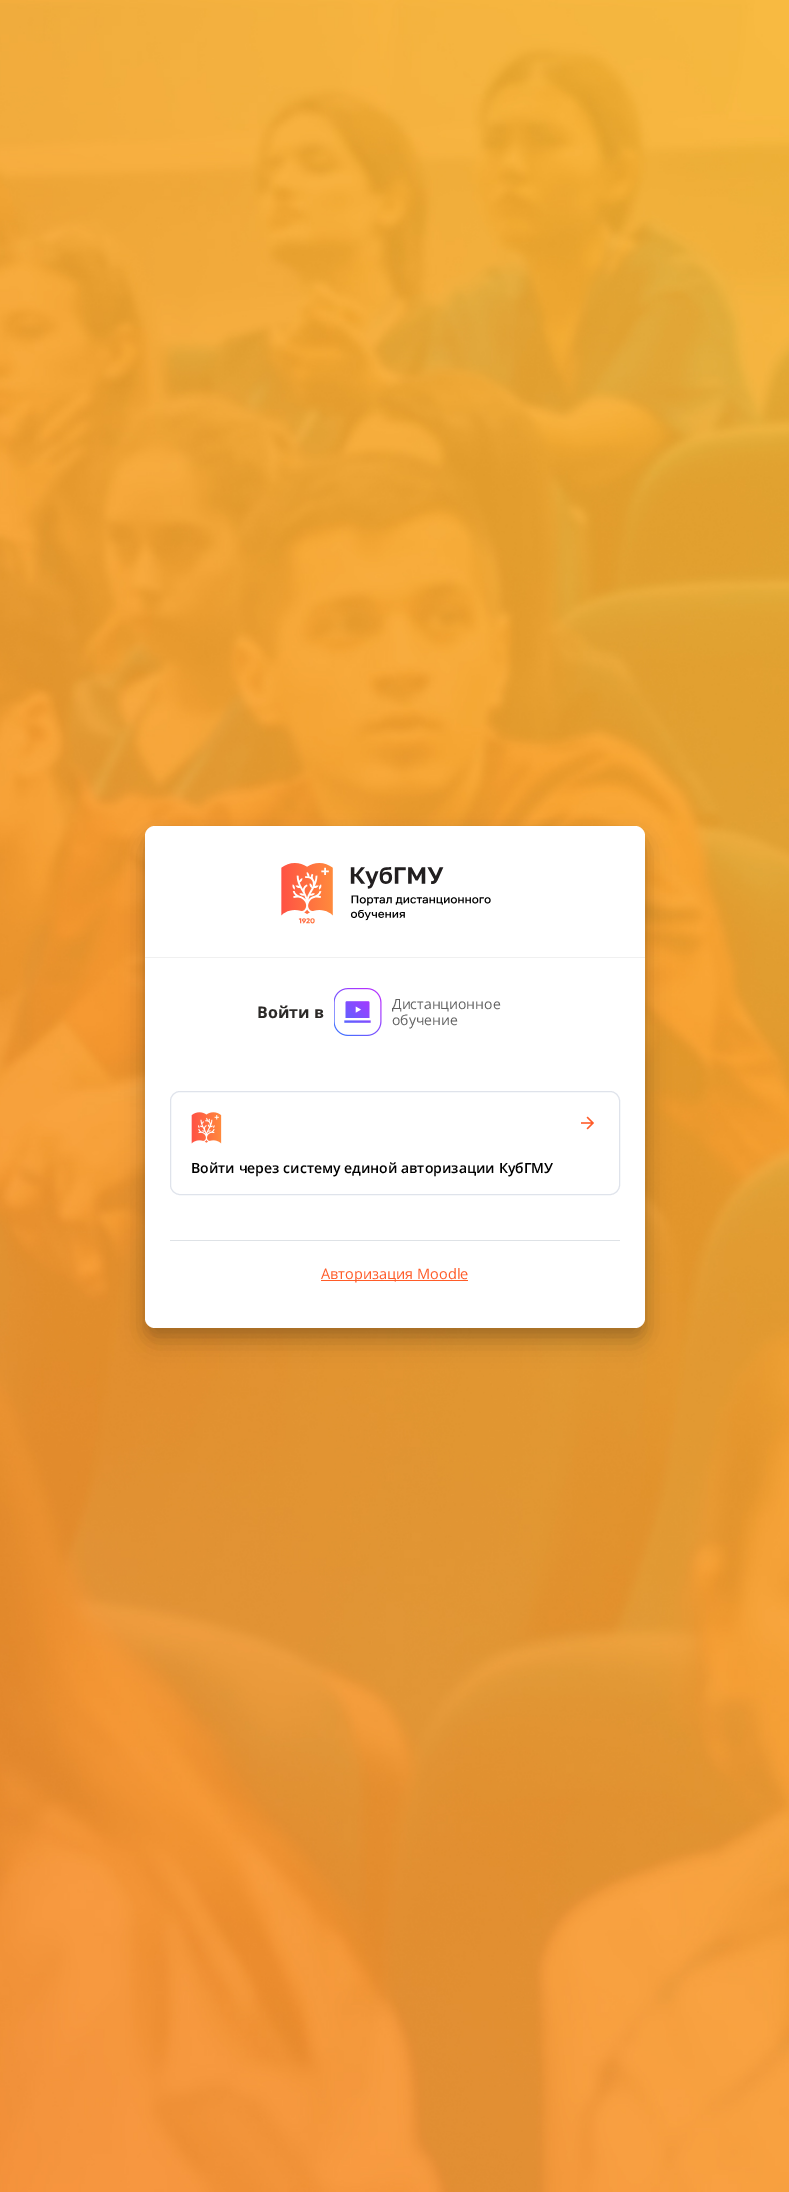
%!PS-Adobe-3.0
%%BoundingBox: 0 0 789 2192
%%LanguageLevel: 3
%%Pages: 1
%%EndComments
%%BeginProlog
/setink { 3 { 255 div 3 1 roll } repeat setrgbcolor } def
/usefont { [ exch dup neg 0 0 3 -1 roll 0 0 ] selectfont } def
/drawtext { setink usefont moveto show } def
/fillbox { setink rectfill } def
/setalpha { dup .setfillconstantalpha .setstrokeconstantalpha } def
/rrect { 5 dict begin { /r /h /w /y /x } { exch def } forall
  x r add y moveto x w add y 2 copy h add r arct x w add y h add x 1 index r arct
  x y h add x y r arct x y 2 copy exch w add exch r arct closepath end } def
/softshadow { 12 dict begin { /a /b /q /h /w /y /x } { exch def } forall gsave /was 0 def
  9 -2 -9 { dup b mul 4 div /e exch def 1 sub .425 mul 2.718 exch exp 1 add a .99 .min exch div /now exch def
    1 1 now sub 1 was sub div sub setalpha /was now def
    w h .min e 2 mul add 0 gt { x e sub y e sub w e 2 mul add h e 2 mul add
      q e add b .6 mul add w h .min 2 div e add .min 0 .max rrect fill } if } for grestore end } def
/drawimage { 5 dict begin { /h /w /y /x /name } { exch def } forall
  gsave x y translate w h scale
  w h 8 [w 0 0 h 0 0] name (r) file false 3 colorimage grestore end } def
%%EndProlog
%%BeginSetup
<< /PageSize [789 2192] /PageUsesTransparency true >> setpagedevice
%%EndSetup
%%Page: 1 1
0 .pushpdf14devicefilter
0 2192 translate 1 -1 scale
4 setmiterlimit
0 0 789 2192 255 255 255 fillbox
(assets/img1.rgb) 0 0 789 2192 drawimage
0 0 0 setink
145 834 500 502 10 7.5 0.15 softshadow
145 840 500 502 10 12 0.15 softshadow
255 255 255 setink
145 826 500 502 10 rrect fill
145 957 500 1 240 240 240 fillbox
(assets/img2.rgb) 281 863 210 61 drawimage
(Войти в) 257 1018 /OpenSans-Bold 16 43 41 39 drawtext
(assets/img3.rgb) 334 988 48 48 drawimage
(Дистанционное) 392 1009 /OpenSans-Regular 14 97 97 97 drawtext
(обучение) 392 1025 /OpenSans-Regular 14 97 97 97 drawtext
223 227 235 setink
170.5 1091.5 449 103 9.5 rrect stroke
(assets/img4.rgb) 191 1112 31 32 drawimage
(assets/img5.rgb) 581 1116 13 14 drawimage
(Войти через систему единой авторизации КубГМУ) 191 1173 /OpenSans-SemiBold 14 0 0 0 drawtext
170 1240 450 1 222 226 230 fillbox
321 1280 147 1 255 91 40 fillbox
(Авторизация Moodle) 321 1279 /OpenSans-Regular 14.5 255 91 40 drawtext
.poppdf14devicefilter showpage
%%EOF
